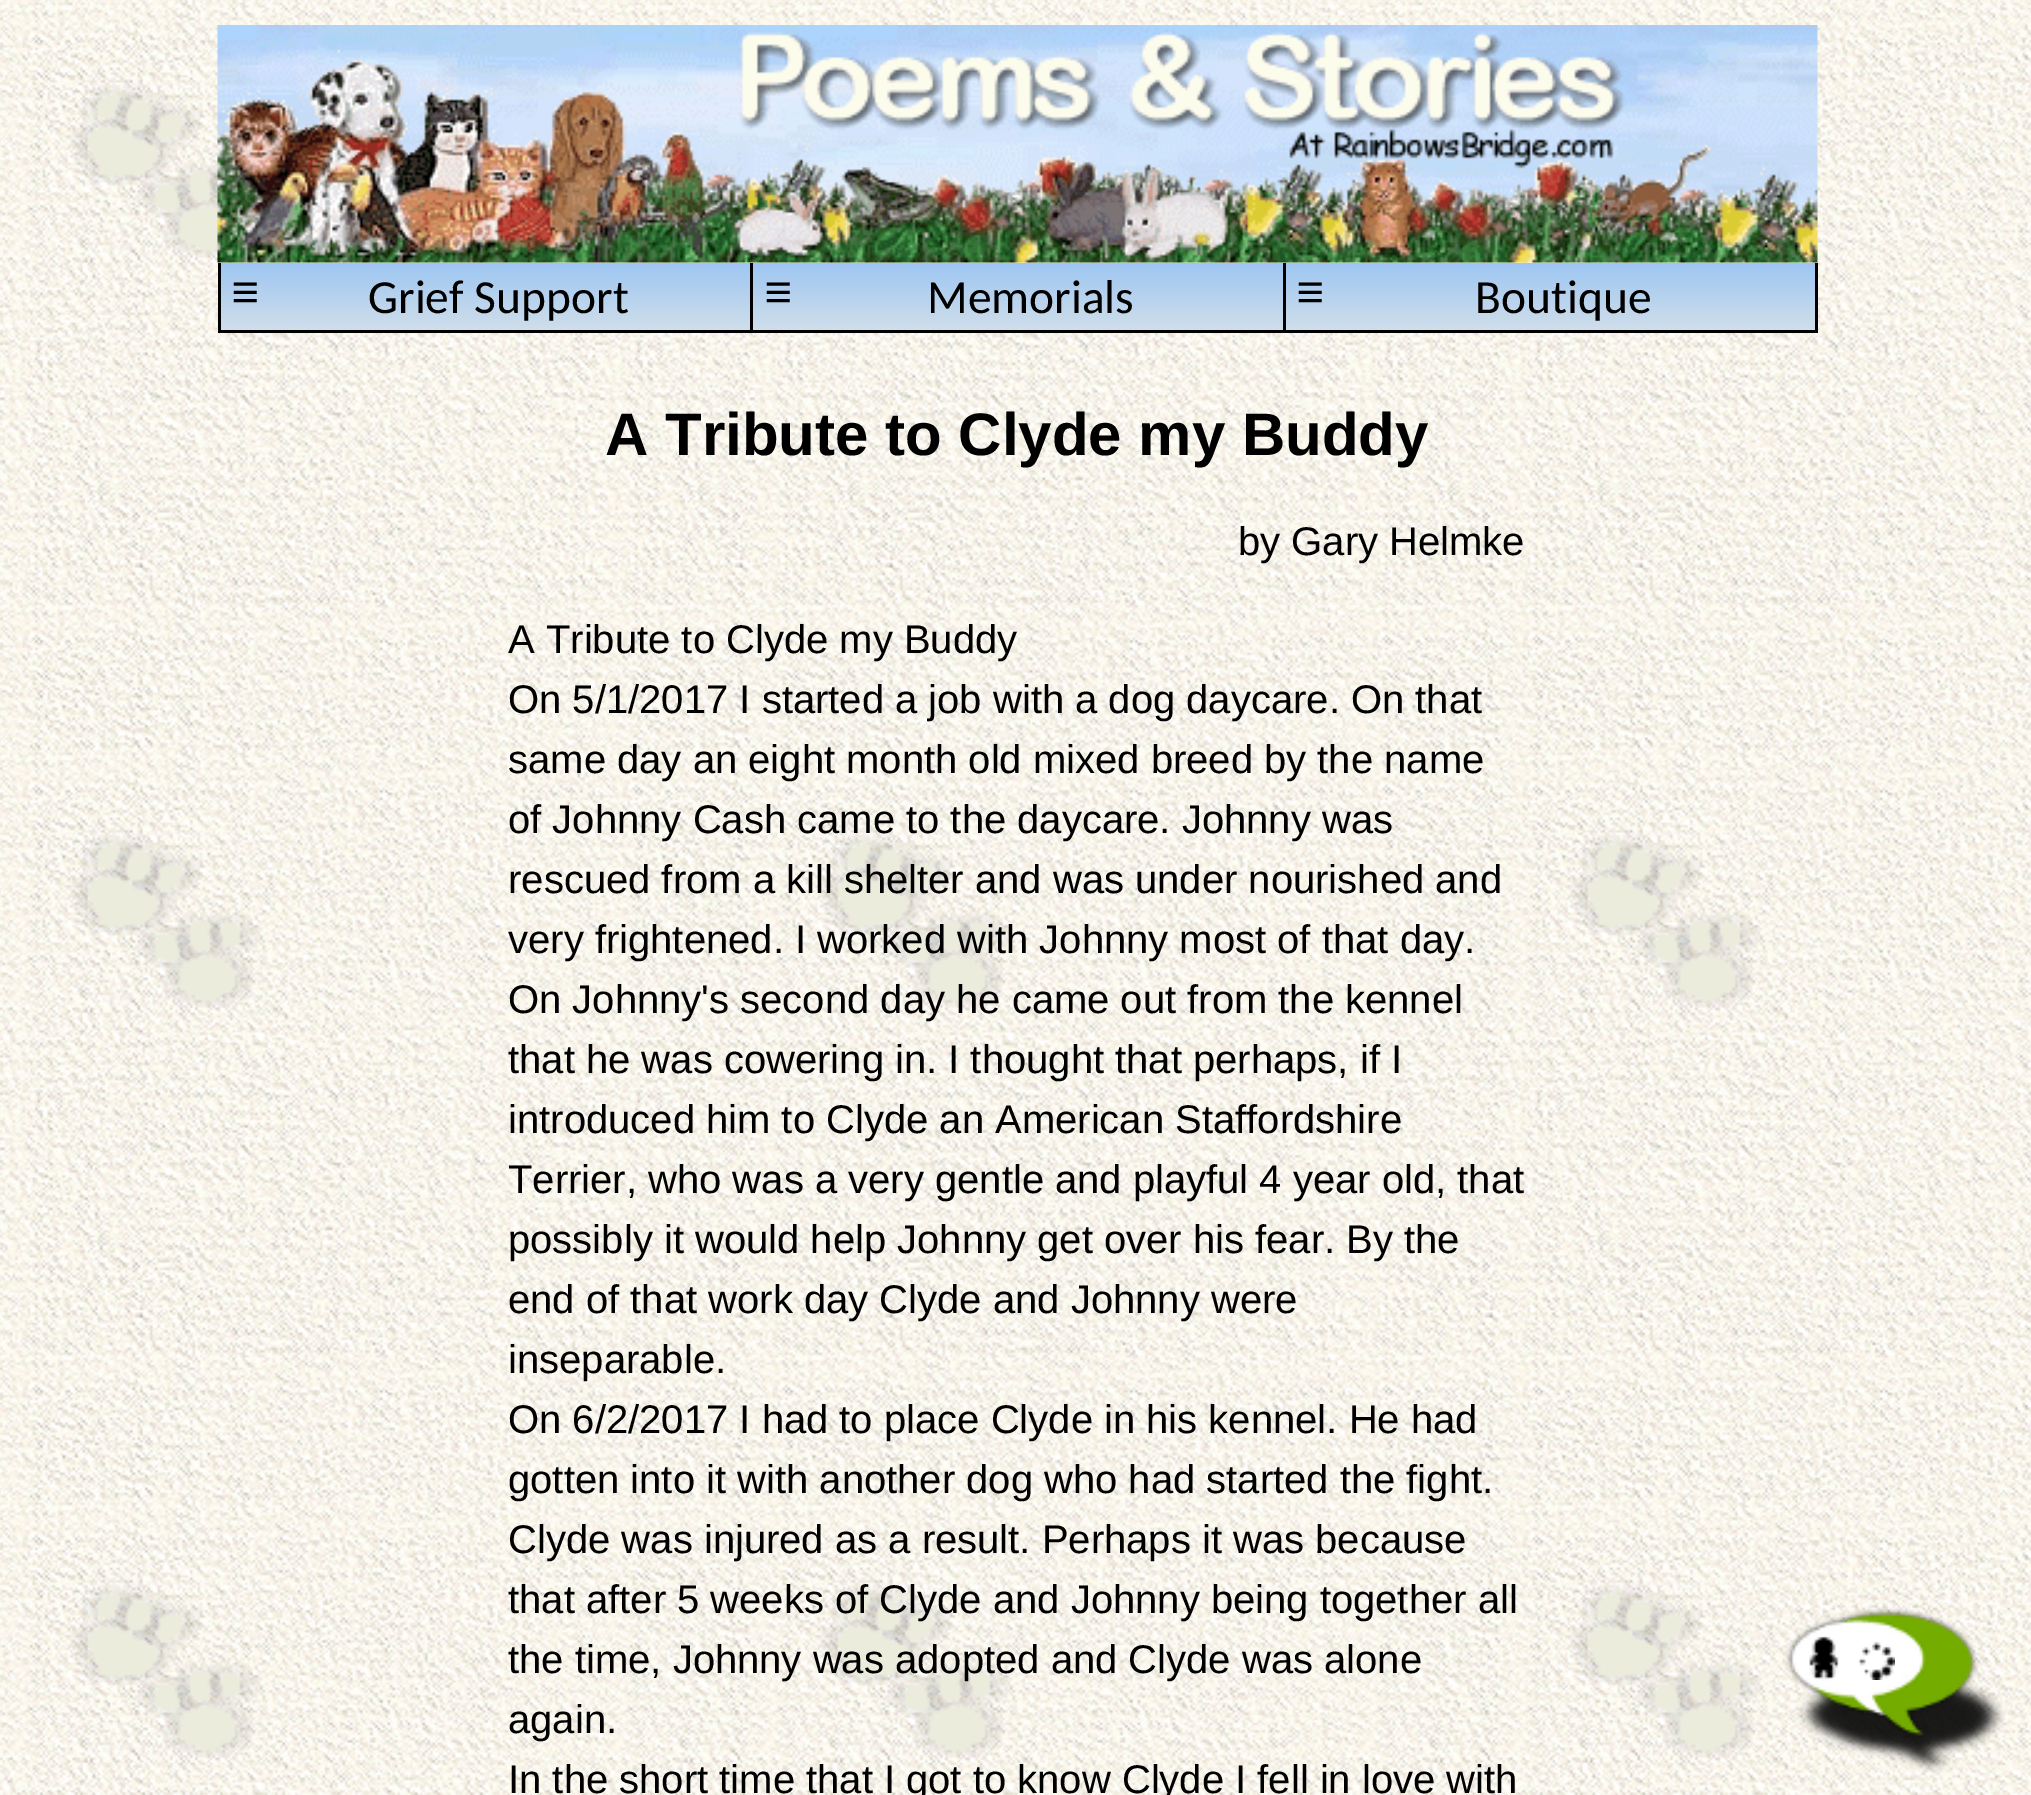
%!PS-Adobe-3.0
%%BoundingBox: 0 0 2031 1795
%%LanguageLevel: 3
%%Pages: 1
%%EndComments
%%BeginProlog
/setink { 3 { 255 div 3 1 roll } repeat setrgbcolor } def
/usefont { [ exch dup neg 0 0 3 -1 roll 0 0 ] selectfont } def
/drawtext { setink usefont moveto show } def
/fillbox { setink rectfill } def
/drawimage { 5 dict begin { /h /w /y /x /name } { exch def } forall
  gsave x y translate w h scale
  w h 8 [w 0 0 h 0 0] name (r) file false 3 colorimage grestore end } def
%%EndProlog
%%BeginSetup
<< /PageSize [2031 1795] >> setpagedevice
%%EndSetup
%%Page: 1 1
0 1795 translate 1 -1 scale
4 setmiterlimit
0 0 2031 1795 255 255 255 fillbox
(assets/img1.rgb) 0 0 2031 1795 drawimage
(assets/img2.rgb) 217 25 1601 238 drawimage
gsave 221 263 moveto 1815 263 lineto 1815 330 lineto 221 330 lineto closepath clip newpath
<< /ShadingType 2 /ColorSpace /DeviceRGB /Coords [1019 262 1019 330] /Extend [true true] /Function << /FunctionType 2 /Domain [0 1] /C0 [0.616 0.776 0.949] /C1 [0.812 0.871 0.918] /N 1 >> >> shfill grestore
218 330 1600 3 0 0 0 fillbox
218 263 3 70 0 0 0 fillbox
750 263 3 67 0 0 0 fillbox
(≡) 231 308 /LiberationMono-Regular 47.5 0 0 0 drawtext
(Grief Support) 368 313 /Carlito-Regular 47.5 0 0 0 drawtext
1283 263 3 67 0 0 0 fillbox
(≡) 764 308 /LiberationMono-Regular 47.5 0 0 0 drawtext
(Memorials) 927 313 /Carlito-Regular 47.5 0 0 0 drawtext
1815 263 3 67 0 0 0 fillbox
(≡) 1296 308 /LiberationMono-Regular 47.5 0 0 0 drawtext
(Boutique) 1475 313 /Carlito-Regular 47.5 0 0 0 drawtext
(A Tribute to Clyde my Buddy) 605 455 /LiberationSans-Bold 60 0 0 0 drawtext
(by Gary Helmke) 1238 555 /LiberationSans-Regular 40 0 0 0 drawtext
(A Tribute to Clyde my Buddy) 508 653 /LiberationSans-Regular 40 0 0 0 drawtext
(On 5/1/2017 I started a job with a dog daycare. On that) 508 713 /LiberationSans-Regular 40 0 0 0 drawtext
(same day an eight month old mixed breed by the name) 508 773 /LiberationSans-Regular 40 0 0 0 drawtext
(of Johnny Cash came to the daycare. Johnny was) 508 833 /LiberationSans-Regular 40 0 0 0 drawtext
(rescued from a kill shelter and was under nourished and) 508 893 /LiberationSans-Regular 40 0 0 0 drawtext
(very frightened. I worked with Johnny most of that day.) 508 953 /LiberationSans-Regular 40 0 0 0 drawtext
(On Johnny's second day he came out from the kennel) 508 1013 /LiberationSans-Regular 40 0 0 0 drawtext
(that he was cowering in. I thought that perhaps, if I) 508 1073 /LiberationSans-Regular 40 0 0 0 drawtext
(introduced him to Clyde an American Staffordshire) 508 1133 /LiberationSans-Regular 40 0 0 0 drawtext
(Terrier, who was a very gentle and playful 4 year old, that) 508 1193 /LiberationSans-Regular 40 0 0 0 drawtext
(possibly it would help Johnny get over his fear. By the) 508 1253 /LiberationSans-Regular 40 0 0 0 drawtext
(end of that work day Clyde and Johnny were) 508 1313 /LiberationSans-Regular 40 0 0 0 drawtext
(inseparable.) 508 1373 /LiberationSans-Regular 40 0 0 0 drawtext
(On 6/2/2017 I had to place Clyde in his kennel. He had) 508 1433 /LiberationSans-Regular 40 0 0 0 drawtext
(gotten into it with another dog who had started the fight.) 508 1493 /LiberationSans-Regular 40 0 0 0 drawtext
(Clyde was injured as a result. Perhaps it was because) 508 1553 /LiberationSans-Regular 40 0 0 0 drawtext
(that after 5 weeks of Clyde and Johnny being together all) 508 1613 /LiberationSans-Regular 40 0 0 0 drawtext
(the time, Johnny was adopted and Clyde was alone) 508 1673 /LiberationSans-Regular 40 0 0 0 drawtext
(again.) 508 1733 /LiberationSans-Regular 40 0 0 0 drawtext
(In the short time that I got to know Clyde I fell in love with) 508 1793 /LiberationSans-Regular 40 0 0 0 drawtext
(assets/img3.rgb) 1785 1607 221 165 drawimage
(assets/img4.rgb) 1857 1641 38 39 drawimage
showpage
%%EOF
